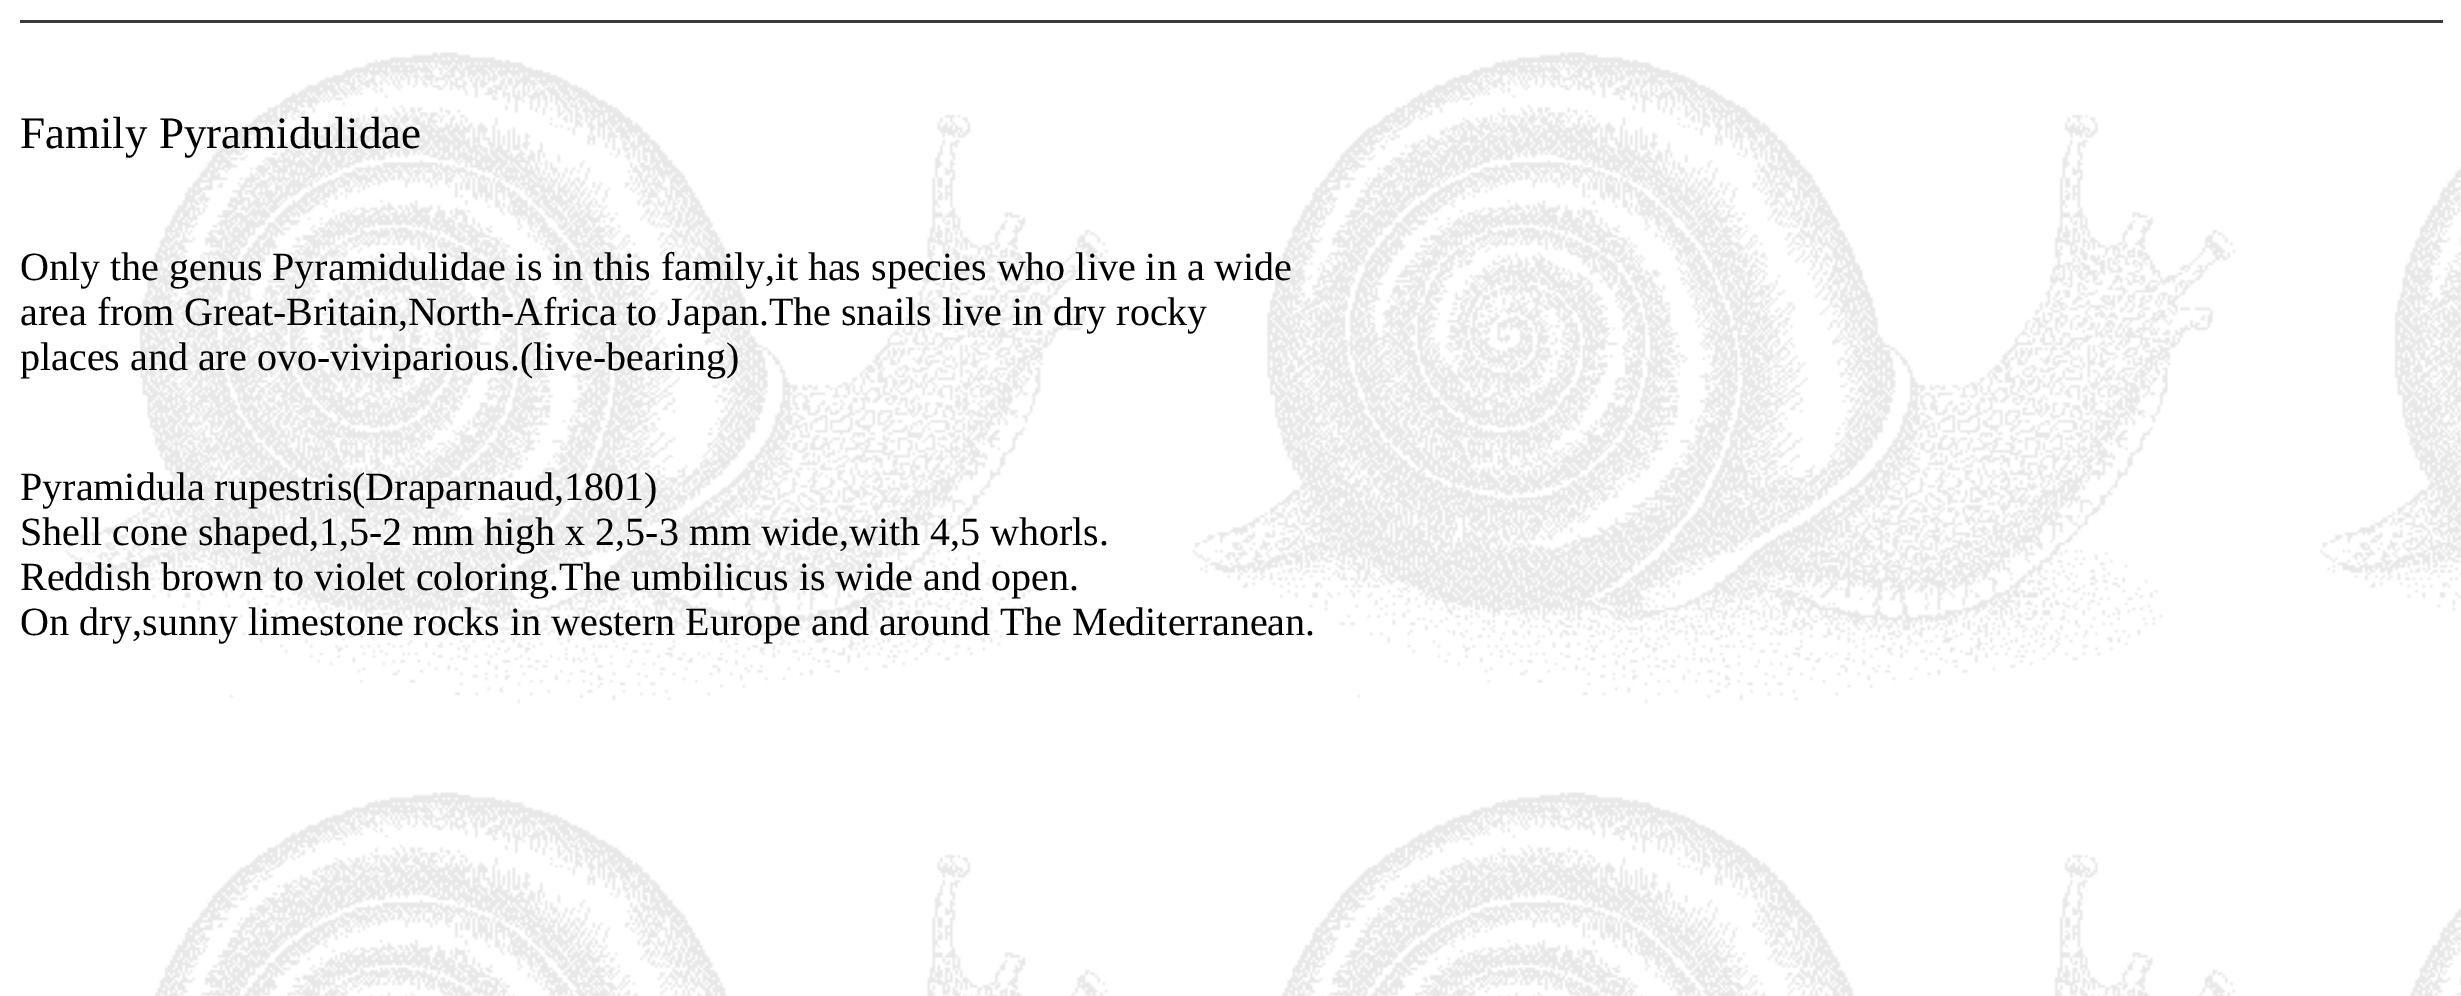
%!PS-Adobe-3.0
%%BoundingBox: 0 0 2461 996
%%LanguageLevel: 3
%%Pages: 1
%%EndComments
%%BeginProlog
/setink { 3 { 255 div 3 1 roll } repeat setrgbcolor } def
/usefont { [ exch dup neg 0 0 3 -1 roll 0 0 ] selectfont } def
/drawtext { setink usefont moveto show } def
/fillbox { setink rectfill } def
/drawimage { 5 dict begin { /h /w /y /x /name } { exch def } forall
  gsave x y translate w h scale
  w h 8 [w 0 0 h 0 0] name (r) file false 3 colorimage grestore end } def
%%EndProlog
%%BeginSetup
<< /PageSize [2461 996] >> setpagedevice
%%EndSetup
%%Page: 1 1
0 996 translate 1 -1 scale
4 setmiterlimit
0 0 2461 996 255 255 255 fillbox
(assets/img1.rgb) 64 52 2397 944 drawimage
20 20 2423 3 57 57 57 fillbox
(Family Pyramidulidae) 20 148 /LiberationSerif-Regular 45 0 0 0 drawtext
(Only the genus Pyramidulidae is in this family,it has species who live in a wide) 20 280 /LiberationSerif-Regular 40 0 0 0 drawtext
(area from Great-Britain,North-Africa to Japan.The snails live in dry rocky) 20 325 /LiberationSerif-Regular 40 0 0 0 drawtext
(places and are ovo-viviparious.\(live-bearing\)) 20 370 /LiberationSerif-Regular 40 0 0 0 drawtext
(Pyramidula rupestris\(Draparnaud,1801\)) 20 500 /LiberationSerif-Regular 40 0 0 0 drawtext
(Shell cone shaped,1,5-2 mm high x 2,5-3 mm wide,with 4,5 whorls.) 20 545 /LiberationSerif-Regular 40 0 0 0 drawtext
(Reddish brown to violet coloring.The umbilicus is wide and open.) 20 590 /LiberationSerif-Regular 40 0 0 0 drawtext
(On dry,sunny limestone rocks in western Europe and around The Mediterranean.) 20 635 /LiberationSerif-Regular 40 0 0 0 drawtext
showpage
%%EOF
